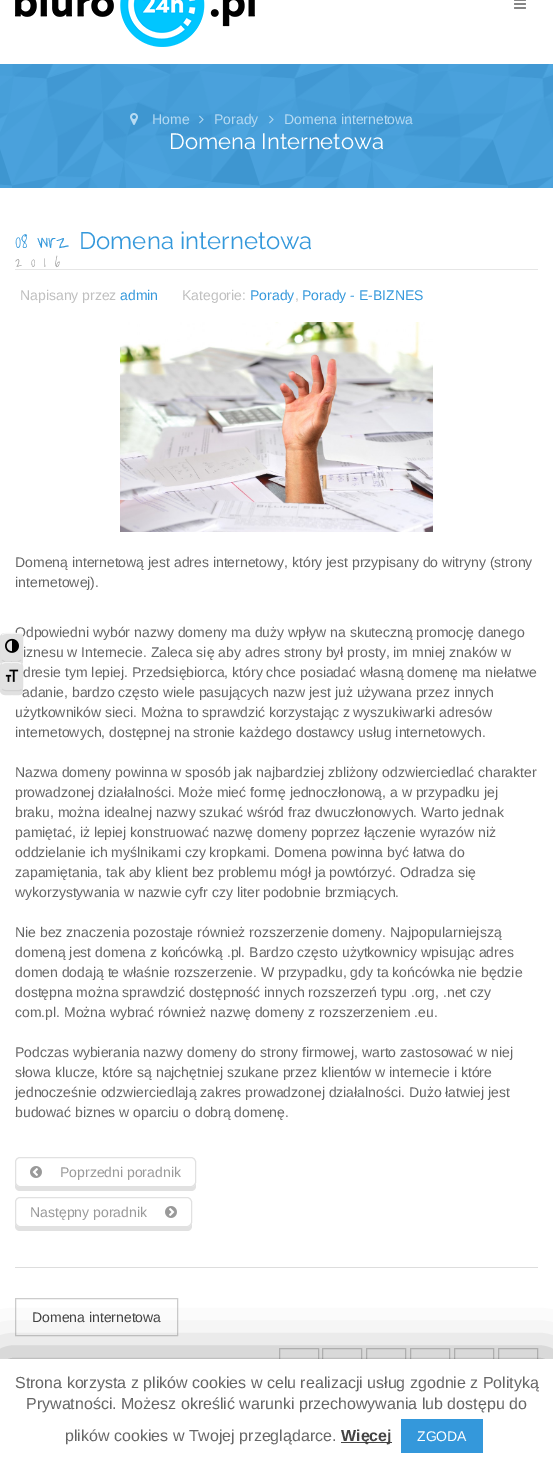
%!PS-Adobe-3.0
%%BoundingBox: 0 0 553 1471
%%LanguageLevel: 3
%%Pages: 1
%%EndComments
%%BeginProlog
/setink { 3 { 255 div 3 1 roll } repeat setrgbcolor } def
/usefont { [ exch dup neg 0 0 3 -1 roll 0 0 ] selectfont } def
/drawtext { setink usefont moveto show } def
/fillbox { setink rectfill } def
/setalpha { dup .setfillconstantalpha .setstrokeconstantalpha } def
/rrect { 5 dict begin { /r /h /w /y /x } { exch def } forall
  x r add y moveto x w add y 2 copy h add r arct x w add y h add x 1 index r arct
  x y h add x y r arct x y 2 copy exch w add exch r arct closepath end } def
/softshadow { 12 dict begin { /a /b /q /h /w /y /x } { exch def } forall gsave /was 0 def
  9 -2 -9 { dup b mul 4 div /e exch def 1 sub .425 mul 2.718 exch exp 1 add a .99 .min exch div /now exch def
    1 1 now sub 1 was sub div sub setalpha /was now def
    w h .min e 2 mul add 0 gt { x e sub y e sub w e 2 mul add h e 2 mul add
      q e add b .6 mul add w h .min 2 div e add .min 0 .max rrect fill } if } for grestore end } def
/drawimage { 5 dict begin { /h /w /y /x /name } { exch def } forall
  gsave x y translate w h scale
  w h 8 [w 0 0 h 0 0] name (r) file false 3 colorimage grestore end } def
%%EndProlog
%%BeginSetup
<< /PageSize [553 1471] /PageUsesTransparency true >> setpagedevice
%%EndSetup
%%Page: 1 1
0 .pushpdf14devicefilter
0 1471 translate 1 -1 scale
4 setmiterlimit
0 0 553 1471 255 255 255 fillbox
225 225 225 setink
0 657 moveto 0 662 lineto 1 667 7.5 666 11.5 666 curveto 15.5 666 22 667 23 662 curveto 23 657 lineto 23 663 15.5 662 11.5 662 curveto 7.5 662 0 663 0 657 curveto closepath fill
(Odpowiedni wybór nazwy domeny ma duży wpływ na skuteczną promocję danego) 15 637 /LiberationSans-Regular 14 102 102 102 drawtext
226 226 226 setink
5 633 moveto 19 633 lineto 21 633 23 635 23 637 curveto 23 657 lineto 23 660 21 662 18 662 curveto 5 662 lineto 2 662 0 660 0 657 curveto 0 638 lineto 0 635 2 633 5 633 curveto closepath fill
245 245 245 setink
2 635 moveto 4 632.5 9 633.5 12 633.5 curveto 14.5 633.5 19.5 632.5 21.5 634.5 curveto stroke
225 225 225 setink
21.5 634.5 moveto 22 635 22.5 636 22.5 637 curveto 22.5 657 lineto 22.5 658 22 659.5 21 660 curveto stroke
210 210 210 setink
21 660 moveto 19 662.5 14.5 661.5 11.5 661.5 curveto 8.5 661.5 4 662.5 2 660 curveto stroke
225 225 225 setink
2 660 moveto 1 659.5 0.5 658 0.5 657 curveto 0.5 638 lineto 0.5 637 1 635.5 2 635 curveto stroke
(assets/img1.rgb) 5 638 14 15 drawimage
(adanie, bardzo często wiele pasujących nazw jest już używana przez innych) 22 697 /LiberationSans-Regular 14 102 102 102 drawtext
225 225 225 setink
0 686 moveto 0 691 lineto 1 696.5 8 695 12 695 curveto 15 695 22 696.5 23 692 curveto 23 687 lineto 23 692.5 15.5 691 12 691 curveto 8 691 0 692.5 0 686 curveto closepath fill
226 226 226 setink
5 662 moveto 18 662 lineto 21 662 23 664 23 667 curveto 23 687 lineto 23 689 21 691 19 691 curveto 5 691 lineto 2 691 0 689 0 686 curveto 0 667 lineto 0 664 2 662 5 662 curveto closepath fill
245 245 245 setink
2 664 moveto 4 661.5 8.5 662.5 11.5 662.5 curveto 14.5 662.5 19 661.5 21 664 curveto stroke
225 225 225 setink
21 664 moveto 22 664.5 22.5 666 22.5 667 curveto 22.5 687 lineto 22.5 688 22 689 21.5 689.5 curveto stroke
210 210 210 setink
21.5 689.5 moveto 19.5 691.5 14.5 690.5 12 690.5 curveto 9 690.5 4 691.5 2 689 curveto stroke
225 225 225 setink
2 689 moveto 1 688.5 0.5 687 0.5 686 curveto 0.5 667 lineto 0.5 666 1 664.5 2 664 curveto stroke
(assets/img2.rgb) 5 669 14 13 drawimage
(assets/img3.rgb) 15 0 240 47 drawimage
(assets/img4.rgb) 514 0 12 9 drawimage
0 64 553 124 52 152 219 fillbox
(assets/img5.rgb) 0 64 553 124 drawimage
(assets/img6.rgb) 130 113 8 12 drawimage
(Home) 152 124 /LiberationSans-Regular 14 182 218 242 drawtext
(assets/img7.rgb) 199 115 5 9 drawimage
(Porady) 214 124 /LiberationSans-Regular 14 182 218 242 drawtext
(assets/img8.rgb) 269 115 5 9 drawimage
(Domena internetowa) 284 124 /LiberationSans-Regular 14 182 218 242 drawtext
(Domena Internetowa) 169 149 /Raleway-Regular 22 255 255 255 drawtext
(08 wrz) 15 248 /ShadowsIntoLight-Light 20 52 152 219 drawtext
/ShadowsIntoLight-Light 14 usefont
153 153 153 setink
15 267 moveto 9 0 (2016) ashow
15 269 523 1 230 230 230 fillbox
(Domena internetowa) 79 249 /Raleway-Regular 24 52 152 219 drawtext
(Napisany przez) 20 300 /LiberationSans-Regular 14 191 191 191 drawtext
(admin) 120 300 /LiberationSans-Regular 14 52 152 219 drawtext
(Kategorie:) 182 300 /LiberationSans-Regular 14 191 191 191 drawtext
(Porady) 250 300 /LiberationSans-Regular 14 52 152 219 drawtext
(,) 295 300 /LiberationSans-Regular 14 191 191 191 drawtext
(Porady - E-BIZNES) 302 300 /LiberationSans-Regular 14 52 152 219 drawtext
(assets/img9.rgb) 120 322 313 210 drawimage
(Domeną internetową jest adres internetowy, który jest przypisany do witryny \(strony) 15 567 /LiberationSans-Regular 14 102 102 102 drawtext
(internetowej\).) 15 587 /LiberationSans-Regular 14 102 102 102 drawtext
(iznesu w Internecie. Zaleca się aby adres strony był prosty, im mniej znaków w) 23 657 /LiberationSans-Regular 14 102 102 102 drawtext
(dresie tym lepiej. Przedsiębiorca, który chce posiadać własną domenę ma niełatwe) 23 677 /LiberationSans-Regular 14 102 102 102 drawtext
(użytkowników sieci. Można to sprawdzić korzystając z wyszukiwarki adresów) 15 717 /LiberationSans-Regular 14 102 102 102 drawtext
(internetowych, dostępnej na stronie każdego dostawcy usług internetowych.) 15 737 /LiberationSans-Regular 14 102 102 102 drawtext
(Nazwa domeny powinna w sposób jak najbardziej zbliżony odzwierciedlać charakter) 15 777 /LiberationSans-Regular 14 102 102 102 drawtext
(prowadzonej działalności. Może mieć formę jednoczłonową, a w przypadku jej) 15 797 /LiberationSans-Regular 14 102 102 102 drawtext
(braku, można idealnej nazwy szukać wśród fraz dwuczłonowych. Warto jednak) 15 817 /LiberationSans-Regular 14 102 102 102 drawtext
(pamiętać, iż lepiej konstruować nazwę domeny poprzez łączenie wyrazów niż) 15 837 /LiberationSans-Regular 14 102 102 102 drawtext
(oddzielanie ich myślnikami czy kropkami. Domena powinna być łatwa do) 15 857 /LiberationSans-Regular 14 102 102 102 drawtext
(zapamiętania, tak aby klient bez problemu mógł ja powtórzyć. Odradza się) 15 877 /LiberationSans-Regular 14 102 102 102 drawtext
(wykorzystywania w nazwie cyfr czy liter podobnie brzmiących.) 15 897 /LiberationSans-Regular 14 102 102 102 drawtext
(Nie bez znaczenia pozostaje również rozszerzenie domeny. Najpopularniejszą) 15 937 /LiberationSans-Regular 14 102 102 102 drawtext
(domeną jest domena z końcówką .pl. Bardzo często użytkownicy wpisując adres) 15 957 /LiberationSans-Regular 14 102 102 102 drawtext
(domen dodają te właśnie rozszerzenie. W przypadku, gdy ta końcówka nie będzie) 15 977 /LiberationSans-Regular 14 102 102 102 drawtext
(dostępna można sprawdzić dostępność innych rozszerzeń typu .org, .net czy) 15 997 /LiberationSans-Regular 14 102 102 102 drawtext
(com.pl. Można wybrać również nazwę domeny z rozszerzeniem .eu.) 15 1017 /LiberationSans-Regular 14 102 102 102 drawtext
(Podczas wybierania nazwy domeny do strony firmowej, warto zastosować w niej) 15 1057 /LiberationSans-Regular 14 102 102 102 drawtext
(słowa klucze, które są najchętniej szukane przez klientów w internecie i które) 15 1077 /LiberationSans-Regular 14 102 102 102 drawtext
(jednocześnie odzwierciedlają zakres prowadzonej działalności. Dużo łatwiej jest) 15 1097 /LiberationSans-Regular 14 102 102 102 drawtext
(budować biznes w oparciu o dobrą domenę.) 15 1117 /LiberationSans-Regular 14 102 102 102 drawtext
15 1267 523 1 221 221 221 fillbox
225 225 225 setink
15 1182 moveto 15 1186 lineto 15 1189 17 1191 20 1191 curveto 191 1191 lineto 194 1191 196 1189 196 1186 curveto 196 1182 lineto 196 1185 194 1187 191 1187 curveto 20 1187 lineto 17 1187 15 1185 15 1182 curveto closepath fill
255 255 255 setink
15.5 1157.5 180 29 4.5 rrect gsave fill grestore
225 225 225 setink
stroke
(assets/img10.rgb) 30 1166 12 12 drawimage
(Poprzedni poradnik) 60 1177 /LiberationSans-Regular 14 153 153 153 drawtext
225 225 225 setink
15 1222 moveto 15 1226 lineto 15 1229 17 1231 20 1231 curveto 187 1231 lineto 190 1231 192 1229 192 1226 curveto 192 1222 lineto 192 1225 190 1227 187 1227 curveto 20 1227 lineto 17 1227 15 1225 15 1222 curveto closepath fill
255 255 255 setink
15.5 1197.5 176 29 4.5 rrect gsave fill grestore
225 225 225 setink
stroke
(Następny poradnik) 30 1217 /LiberationSans-Regular 14 153 153 153 drawtext
(assets/img11.rgb) 165 1206 12 12 drawimage
204 204 204 setink
15.5 1298.5 162 37 rectstroke
(Domena internetowa) 32 1322 /LiberationSans-Regular 14 68 68 68 drawtext
204 204 204 setink
279.5 1348.5 39 39 rectstroke
322.5 1348.5 39 39 rectstroke
366.5 1348.5 39 39 rectstroke
410.5 1348.5 39 39 rectstroke
454.5 1348.5 39 39 rectstroke
498.5 1348.5 39 39 rectstroke
0 0 0 setink
0 1364 553 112 0 25 0.5 softshadow
0 1359 553 112 255 255 255 fillbox
(Strona korzysta z plików cookies w celu realizacji usług zgodnie z Polityką) 15 1388 /LiberationSans-Regular 16 102 102 102 drawtext
(Prywatności. Możesz określić warunki przechowywania lub dostępu do) 26 1409 /LiberationSans-Regular 16 102 102 102 drawtext
(plików cookies w Twojej przeglądarce.) 65 1441 /LiberationSans-Regular 16 102 102 102 drawtext
341 1442 51 1 68 68 68 fillbox
(Więcej) 341 1441 /LiberationSans-Bold 16 68 68 68 drawtext
401 1419 82 34 52 152 219 fillbox
(ZGODA) 417 1441 /LiberationSans-Regular 14 255 255 255 drawtext
.poppdf14devicefilter showpage
%%EOF
